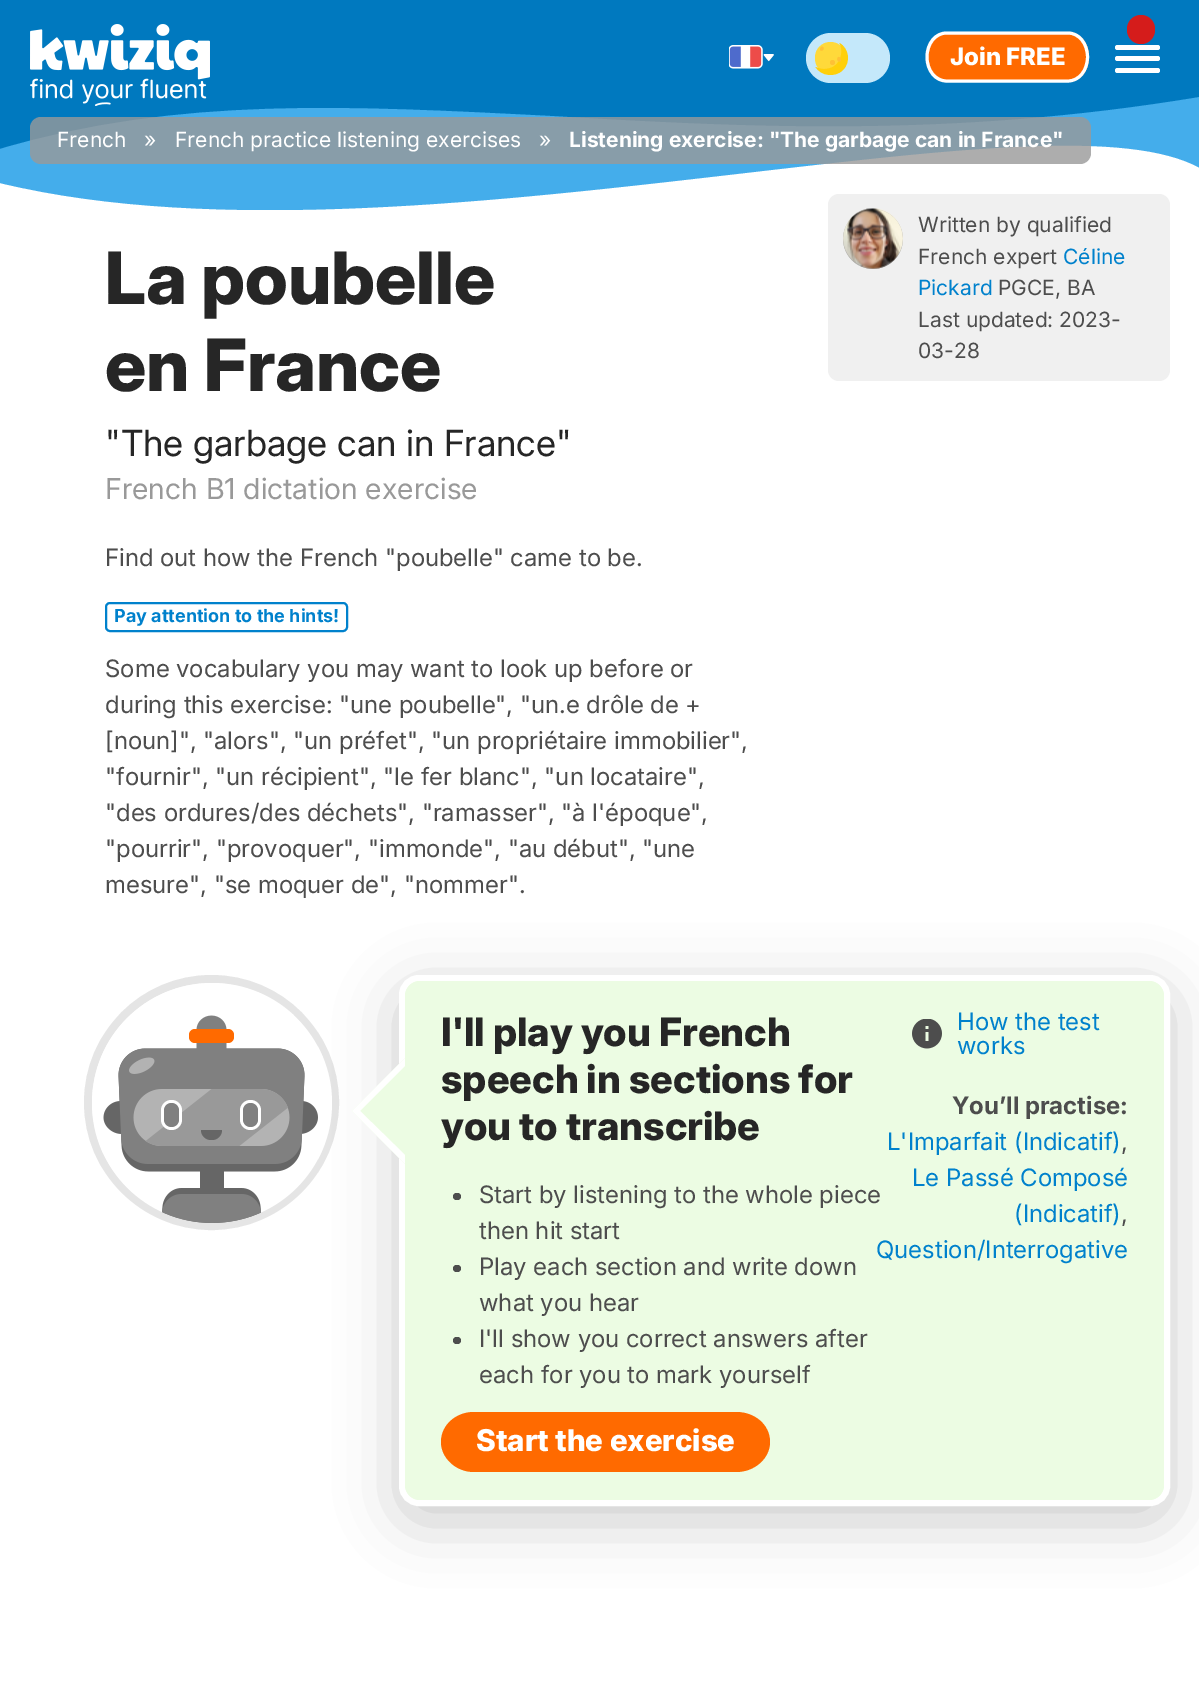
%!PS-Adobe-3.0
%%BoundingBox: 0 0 1199 1704
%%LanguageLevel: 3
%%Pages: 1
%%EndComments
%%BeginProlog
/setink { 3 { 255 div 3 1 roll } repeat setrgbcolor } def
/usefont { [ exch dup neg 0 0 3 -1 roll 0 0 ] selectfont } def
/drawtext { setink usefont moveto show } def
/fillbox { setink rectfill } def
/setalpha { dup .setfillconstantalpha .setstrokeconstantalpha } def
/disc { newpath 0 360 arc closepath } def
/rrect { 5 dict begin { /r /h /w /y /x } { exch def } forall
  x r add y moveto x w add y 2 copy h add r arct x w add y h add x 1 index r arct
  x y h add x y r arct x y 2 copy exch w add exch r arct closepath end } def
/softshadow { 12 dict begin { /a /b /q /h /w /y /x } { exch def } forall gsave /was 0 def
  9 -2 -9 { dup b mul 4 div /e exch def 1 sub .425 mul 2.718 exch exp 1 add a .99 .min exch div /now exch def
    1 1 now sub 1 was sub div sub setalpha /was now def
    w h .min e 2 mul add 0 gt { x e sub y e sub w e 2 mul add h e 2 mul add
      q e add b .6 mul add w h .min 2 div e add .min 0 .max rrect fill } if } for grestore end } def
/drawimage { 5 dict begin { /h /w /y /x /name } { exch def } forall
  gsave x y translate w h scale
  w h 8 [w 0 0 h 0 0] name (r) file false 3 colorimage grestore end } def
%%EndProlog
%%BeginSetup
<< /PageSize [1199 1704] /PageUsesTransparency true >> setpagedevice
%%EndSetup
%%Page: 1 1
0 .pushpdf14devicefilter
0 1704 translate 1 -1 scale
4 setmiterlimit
0 0 1199 1704 255 255 255 fillbox
0 121 191 setink
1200 0 moveto 0 0 lineto 0 151 lineto 178 97 353 107 550 118 curveto 739 128 948 140 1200 98 curveto closepath fill
gsave
0 0 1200 210 rectclip
68 173 235 setink
550 116 moveto 353 106 178 96 0 149 curveto 0 183 lineto 215 235 502 201 745 173 curveto 952 149 1128 128 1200 168 curveto 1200 97 lineto 948 139 739 127 550 116 curveto closepath fill
grestore
(assets/img1.rgb) 30 24 180 56 drawimage
(assets/img2.rgb) 30 78 177 28 drawimage
(assets/img3.rgb) 729 45 34 24 drawimage
(assets/img4.rgb) 763 54 11 8 drawimage
196 232 250 setink
806 33 84 50 25 rrect fill
255 217 58 setink
815 42 31 32 15.5 rrect fill
255 208 11 setink
815.5 67 moveto 821 76 835 78 843 70 curveto 851 62 849 48.5 839.5 43 curveto 844.5 53.5 839.5 69 824 69 curveto 820.5 69 818 68 815.5 67 curveto closepath fill
255 193 53 setink
823 47 moveto 825 48.5 822.5 51.5 820.5 50.5 curveto 819 49 821.5 45.5 823 47 curveto closepath fill
838.5 57 moveto 840.5 56.5 842 61 840 61.5 curveto 837.5 62.5 836 58 838.5 57 curveto closepath fill
832.5 62.5 2.5 disc fill
255 106 0 setink
946 32 moveto 1068 32 lineto 1080 32 1089 43 1089 57 curveto 1089 71 1080 82 1068 82 curveto 946 82 lineto 935 82 926 71 926 57 curveto 926 43 935 32 946 32 curveto closepath fill
255 255 255 setink
3 setlinewidth
946.5 33 moveto 1068 33 lineto 1079 33 1087.5 43.5 1087.5 57 curveto 1087.5 70.5 1079 81 1068 81 curveto 946.5 81 lineto 935.5 81 927 70.5 927 57 curveto 927 43.5 935.5 33 946.5 33 curveto closepath stroke
(Join FREE) 950 65 /Inter-ExtraBold 24 255 255 255 drawtext
213 28 27 setink
1127 15 28 29 14 rrect fill
255 255 255 setink
1115 45 45 5 2.5 rrect fill
1115 56 45 5 2.5 rrect fill
1115 68 45 5 2.5 rrect fill
0.8 setalpha
153 153 153 setink
30 117 1061 47 11 rrect fill
1 setalpha
(French) 57 147 /Inter-Regular 21 255 255 255 drawtext
(») 144 147 /Inter-Regular 21 255 255 255 drawtext
(French practice listening exercises) 175 147 /Inter-Regular 21 255 255 255 drawtext
(») 539 147 /Inter-Regular 21 255 255 255 drawtext
(Listening exercise: "The garbage can in France") 569 147 /Inter-Bold 21 255 255 255 drawtext
(La poubelle) 105 304 /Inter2-ExtraBold 72 38 38 38 drawtext
(en France) 105 391 /Inter2-ExtraBold 72 38 38 38 drawtext
("The garbage can in France") 105 456 /Inter2-Regular 36 38 38 38 drawtext
(French B1 dictation exercise) 105 499 /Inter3-Regular 28.75 153 153 153 drawtext
(Find out how the French "poubelle" came to be.) 105 566 /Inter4-Regular 24 77 77 77 drawtext
0 129 204 setink
2 setlinewidth
106 603 241 28 4 rrect stroke
(Pay attention to the hints!) 114 622 /Inter-Bold 18 0 129 204 drawtext
(Some vocabulary you may want to look up before or) 105 677 /Inter4-Regular 24 77 77 77 drawtext
(during this exercise: "une poubelle", "un.e drôle de +) 105 713 /Inter4-Regular 24 77 77 77 drawtext
([noun]", "alors", "un préfet", "un propriétaire immobilier",) 105 749 /Inter4-Regular 24 77 77 77 drawtext
("fournir", "un récipient", "le fer blanc", "un locataire",) 105 785 /Inter4-Regular 24 77 77 77 drawtext
("des ordures/des déchets", "ramasser", "à l'époque",) 105 821 /Inter4-Regular 24 77 77 77 drawtext
("pourrir", "provoquer", "immonde", "au début", "une) 105 857 /Inter4-Regular 24 77 77 77 drawtext
(mesure", "se moquer de", "nommer".) 105 893 /Inter4-Regular 24 77 77 77 drawtext
240 240 240 setink
828 194 342 187 11 rrect fill
165 165 165 setink
873 239 30 disc fill
(assets/img5.rgb) 843 208 60 61 drawimage
(Written by qualified) 918 232 /Inter-Regular 21 77 77 77 drawtext
(French expert) 918 264 /Inter-Regular 21 77 77 77 drawtext
(Céline) 1063 264 /Inter-Regular 21 0 129 204 drawtext
(Pickard) 918 295 /Inter-Regular 21 0 129 204 drawtext
(PGCE, BA) 998 295 /Inter-Regular 21 77 77 77 drawtext
(Last updated: 2023-) 918 327 /Inter-Regular 21 77 77 77 drawtext
(03-28) 918 358 /Inter-Regular 21 77 77 77 drawtext
229 229 229 setink
8 setlinewidth
211.5 1102.5 123.5 disc stroke
0 0 0 setink
399 990 771 531 20 30 0.2 softshadow
255 255 255 setink
212 1103 120 disc fill
(assets/img6.rgb) 103 1015 215 208 drawimage
255 106 0 setink
189 1029 45 14 6 rrect fill
255 255 255 setink
161 1100 21 30 10.5 rrect fill
128 128 128 setink
164 1103 15 24 7.5 rrect fill
255 255 255 setink
240 1100 21 30 10.5 rrect fill
128 128 128 setink
243 1103 15 24 7.5 rrect fill
102 102 102 setink
201 1130 moveto 222 1130 lineto 222 1135.5 217.5 1140 212 1140 curveto 211 1140 lineto 205.5 1140 201 1135.5 201 1130 curveto closepath fill
236 252 227 setink
402 978 765 525 17 rrect gsave fill grestore
255 255 255 setink
6 setlinewidth
stroke
236 252 227 setink
405 1058 moveto 458 1111 lineto 405 1164 lineto 352 1111 lineto closepath fill
255 255 255 setink
405 1164 moveto 352 1111 lineto 360 1111 lineto 405 1155 lineto closepath fill
352 1111 moveto 405 1058 lineto 405 1066 lineto 360 1111 lineto closepath fill
236 252 227 setink
405 981 759 519 15 rrect fill
(I'll play you French) 441 1046 /Inter3-ExtraBold 39 38 38 38 drawtext
(speech in sections for) 441 1093 /Inter3-ExtraBold 39 38 38 38 drawtext
(you to transcribe) 441 1140 /Inter3-ExtraBold 39 38 38 38 drawtext
77 77 77 setink
453 1193 8 7 3.5 rrect fill
(Start by listening to the whole piece) 479 1203 /Inter4-Regular 24 77 77 77 drawtext
(then hit start) 479 1239 /Inter4-Regular 24 77 77 77 drawtext
453 1265 8 7 3.5 rrect fill
(Play each section and write down) 479 1275 /Inter4-Regular 24 77 77 77 drawtext
(what you hear) 479 1311 /Inter4-Regular 24 77 77 77 drawtext
453 1337 8 7 3.5 rrect fill
(I'll show you correct answers after) 479 1347 /Inter4-Regular 24 77 77 77 drawtext
(each for you to mark yourself) 479 1383 /Inter4-Regular 24 77 77 77 drawtext
255 106 0 setink
474 1412 moveto 736 1412 lineto 755 1412 770 1425 770 1442 curveto 770 1458 755 1472 736 1472 curveto 474 1472 lineto 456 1472 441 1458 441 1442 curveto 441 1425 456 1412 474 1412 curveto closepath fill
(Start the exercise) 476 1451 /Inter4-ExtraBold 30 255 255 255 drawtext
(assets/img7.rgb) 912 1019 30 30 drawimage
(How the test) 957 1030 /Inter4-Regular 24 0 129 204 drawtext
(works) 957 1054 /Inter4-Regular 24 0 129 204 drawtext
(You’ll practise:) 952 1114 /Inter2-Bold 24 77 77 77 drawtext
(L'Imparfait \(Indicatif\)) 887 1150 /Inter4-Regular 24 0 129 204 drawtext
(,) 1121 1150 /Inter4-Regular 24 77 77 77 drawtext
(Le Passé Composé) 912 1186 /Inter4-Regular 24 0 129 204 drawtext
(\(Indicatif\)) 1014 1222 /Inter4-Regular 24 0 129 204 drawtext
(,) 1121 1222 /Inter4-Regular 24 77 77 77 drawtext
(Question/Interrogative) 876 1258 /Inter4-Regular 24 0 129 204 drawtext
.poppdf14devicefilter showpage
%%EOF
